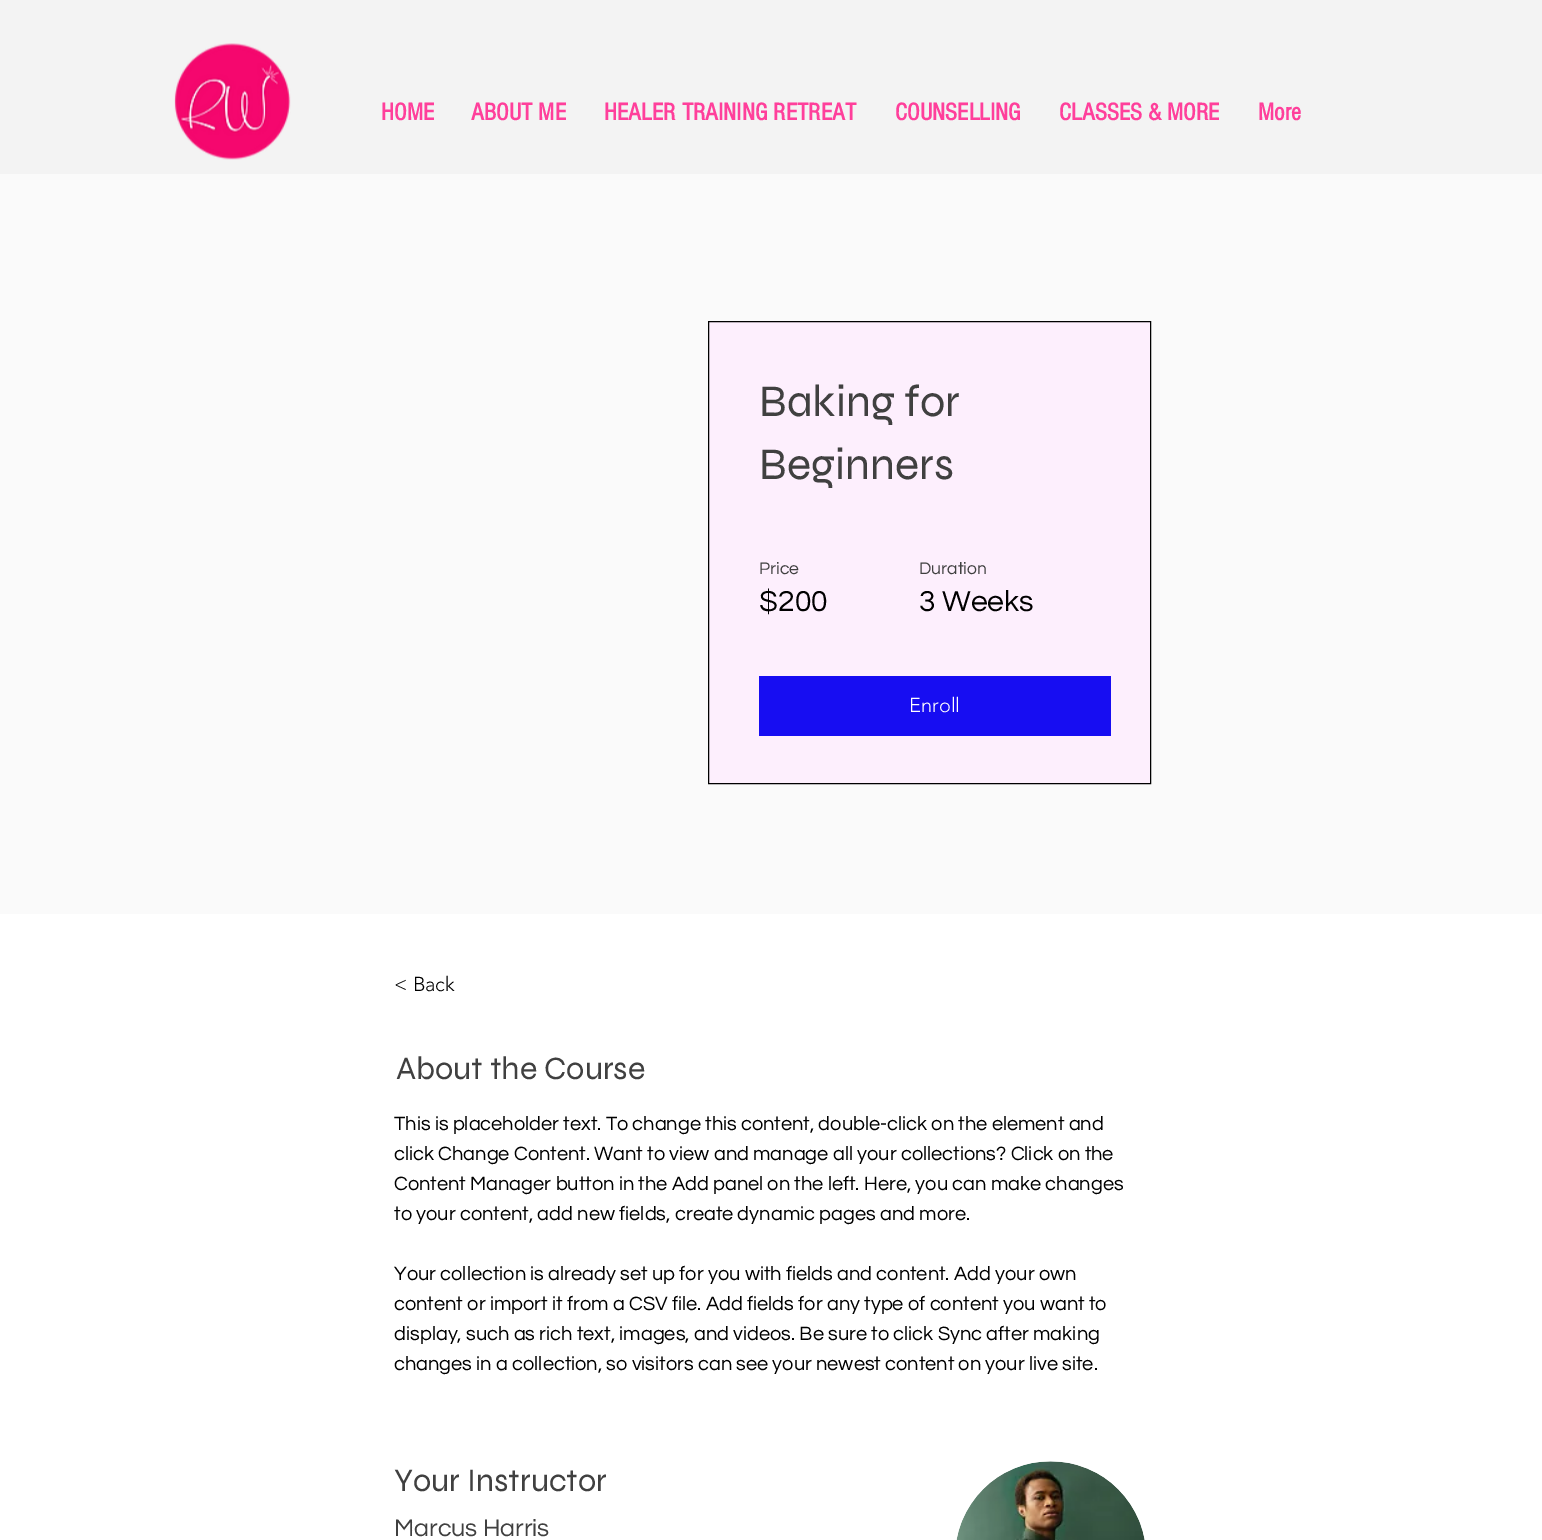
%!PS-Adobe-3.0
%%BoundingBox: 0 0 1542 1540
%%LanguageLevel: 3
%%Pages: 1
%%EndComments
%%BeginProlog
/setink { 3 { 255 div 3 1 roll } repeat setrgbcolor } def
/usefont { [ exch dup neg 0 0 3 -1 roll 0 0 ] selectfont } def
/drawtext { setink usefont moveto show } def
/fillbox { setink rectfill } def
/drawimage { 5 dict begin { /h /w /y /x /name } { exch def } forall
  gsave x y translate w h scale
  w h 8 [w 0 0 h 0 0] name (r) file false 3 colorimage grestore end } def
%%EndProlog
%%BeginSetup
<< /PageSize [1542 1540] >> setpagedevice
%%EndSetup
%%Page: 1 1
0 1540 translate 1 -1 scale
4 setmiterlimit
0 0 1542 1540 255 255 255 fillbox
0 0 1542 174 243 243 243 fillbox
(assets/img1.rgb) 174 43 117 117 drawimage
(HOME) 381 120 /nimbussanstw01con-Bold 25 255 63 155 drawtext
(ABOUT ME) 471 120 /nimbussanstw01con-Bold 25 255 63 155 drawtext
(HEALER TRAINING RETREAT) 604 120 /nimbussanstw01con-Bold 25 255 63 155 drawtext
(COUNSELLING) 895 120 /nimbussanstw01con-Bold 25 255 63 155 drawtext
(CLASSES & MORE) 1059 120 /nimbussanstw01con-Bold 25 255 63 155 drawtext
(More) 1258 120 /nimbussanstw01con-Bold 25 255 63 155 drawtext
0 174 1542 740 250 250 250 fillbox
253 239 253 setink
708.5 321.5 moveto 1150.5 321.5 lineto 1150.5 783.5 lineto 708.5 783.5 lineto closepath gsave fill grestore
0 0 0 setink
stroke
(Baking for) 759 416 /Syne-Regular 45 64 64 64 drawtext
(Beginners) 759 479 /Syne-Regular 45 64 64 64 drawtext
(Price) 759 574 /Questrial-Regular 17.5 64 64 64 drawtext
(Duration) 919 574 /Questrial-Regular 17.5 64 64 64 drawtext
($200) 759 611 /Questrial-Regular 30 0 0 0 drawtext
(3 Weeks) 919 611 /Questrial-Regular 30 0 0 0 drawtext
759 676 352 60 23 13 242 fillbox
(Enroll) 909 712 /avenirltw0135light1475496-Light 20 255 255 255 drawtext
(< Back) 394 991 /avenirltw0135light1475496-Light 20 0 0 0 drawtext
(About the Course) 396 1079 /Syne-Regular 32.5 64 64 64 drawtext
(This is placeholder text. To change this content, double-click on the element and) 394 1130 /Questrial-Regular 20 0 0 0 drawtext
(click Change Content. Want to view and manage all your collections? Click on the) 394 1160 /Questrial-Regular 20 0 0 0 drawtext
(Content Manager button in the Add panel on the left. Here, you can make changes) 394 1190 /Questrial-Regular 20 0 0 0 drawtext
(to your content, add new fields, create dynamic pages and more.) 394 1220 /Questrial-Regular 20 0 0 0 drawtext
(Your collection is already set up for you with fields and content. Add your own) 394 1280 /Questrial-Regular 20 0 0 0 drawtext
(content or import it from a CSV file. Add fields for any type of content you want to) 394 1310 /Questrial-Regular 20 0 0 0 drawtext
(display, such as rich text, images, and videos. Be sure to click Sync after making) 394 1340 /Questrial-Regular 20 0 0 0 drawtext
(changes in a collection, so visitors can see your newest content on your live site.) 394 1370 /Questrial-Regular 20 0 0 0 drawtext
(Your Instructor) 394 1491 /Syne-Regular 32.5 64 64 64 drawtext
(assets/img2.rgb) 956 1461 189 79 drawimage
(Marcus Harris) 394 1536 /Questrial-Regular 25 64 64 64 drawtext
showpage
%%EOF
